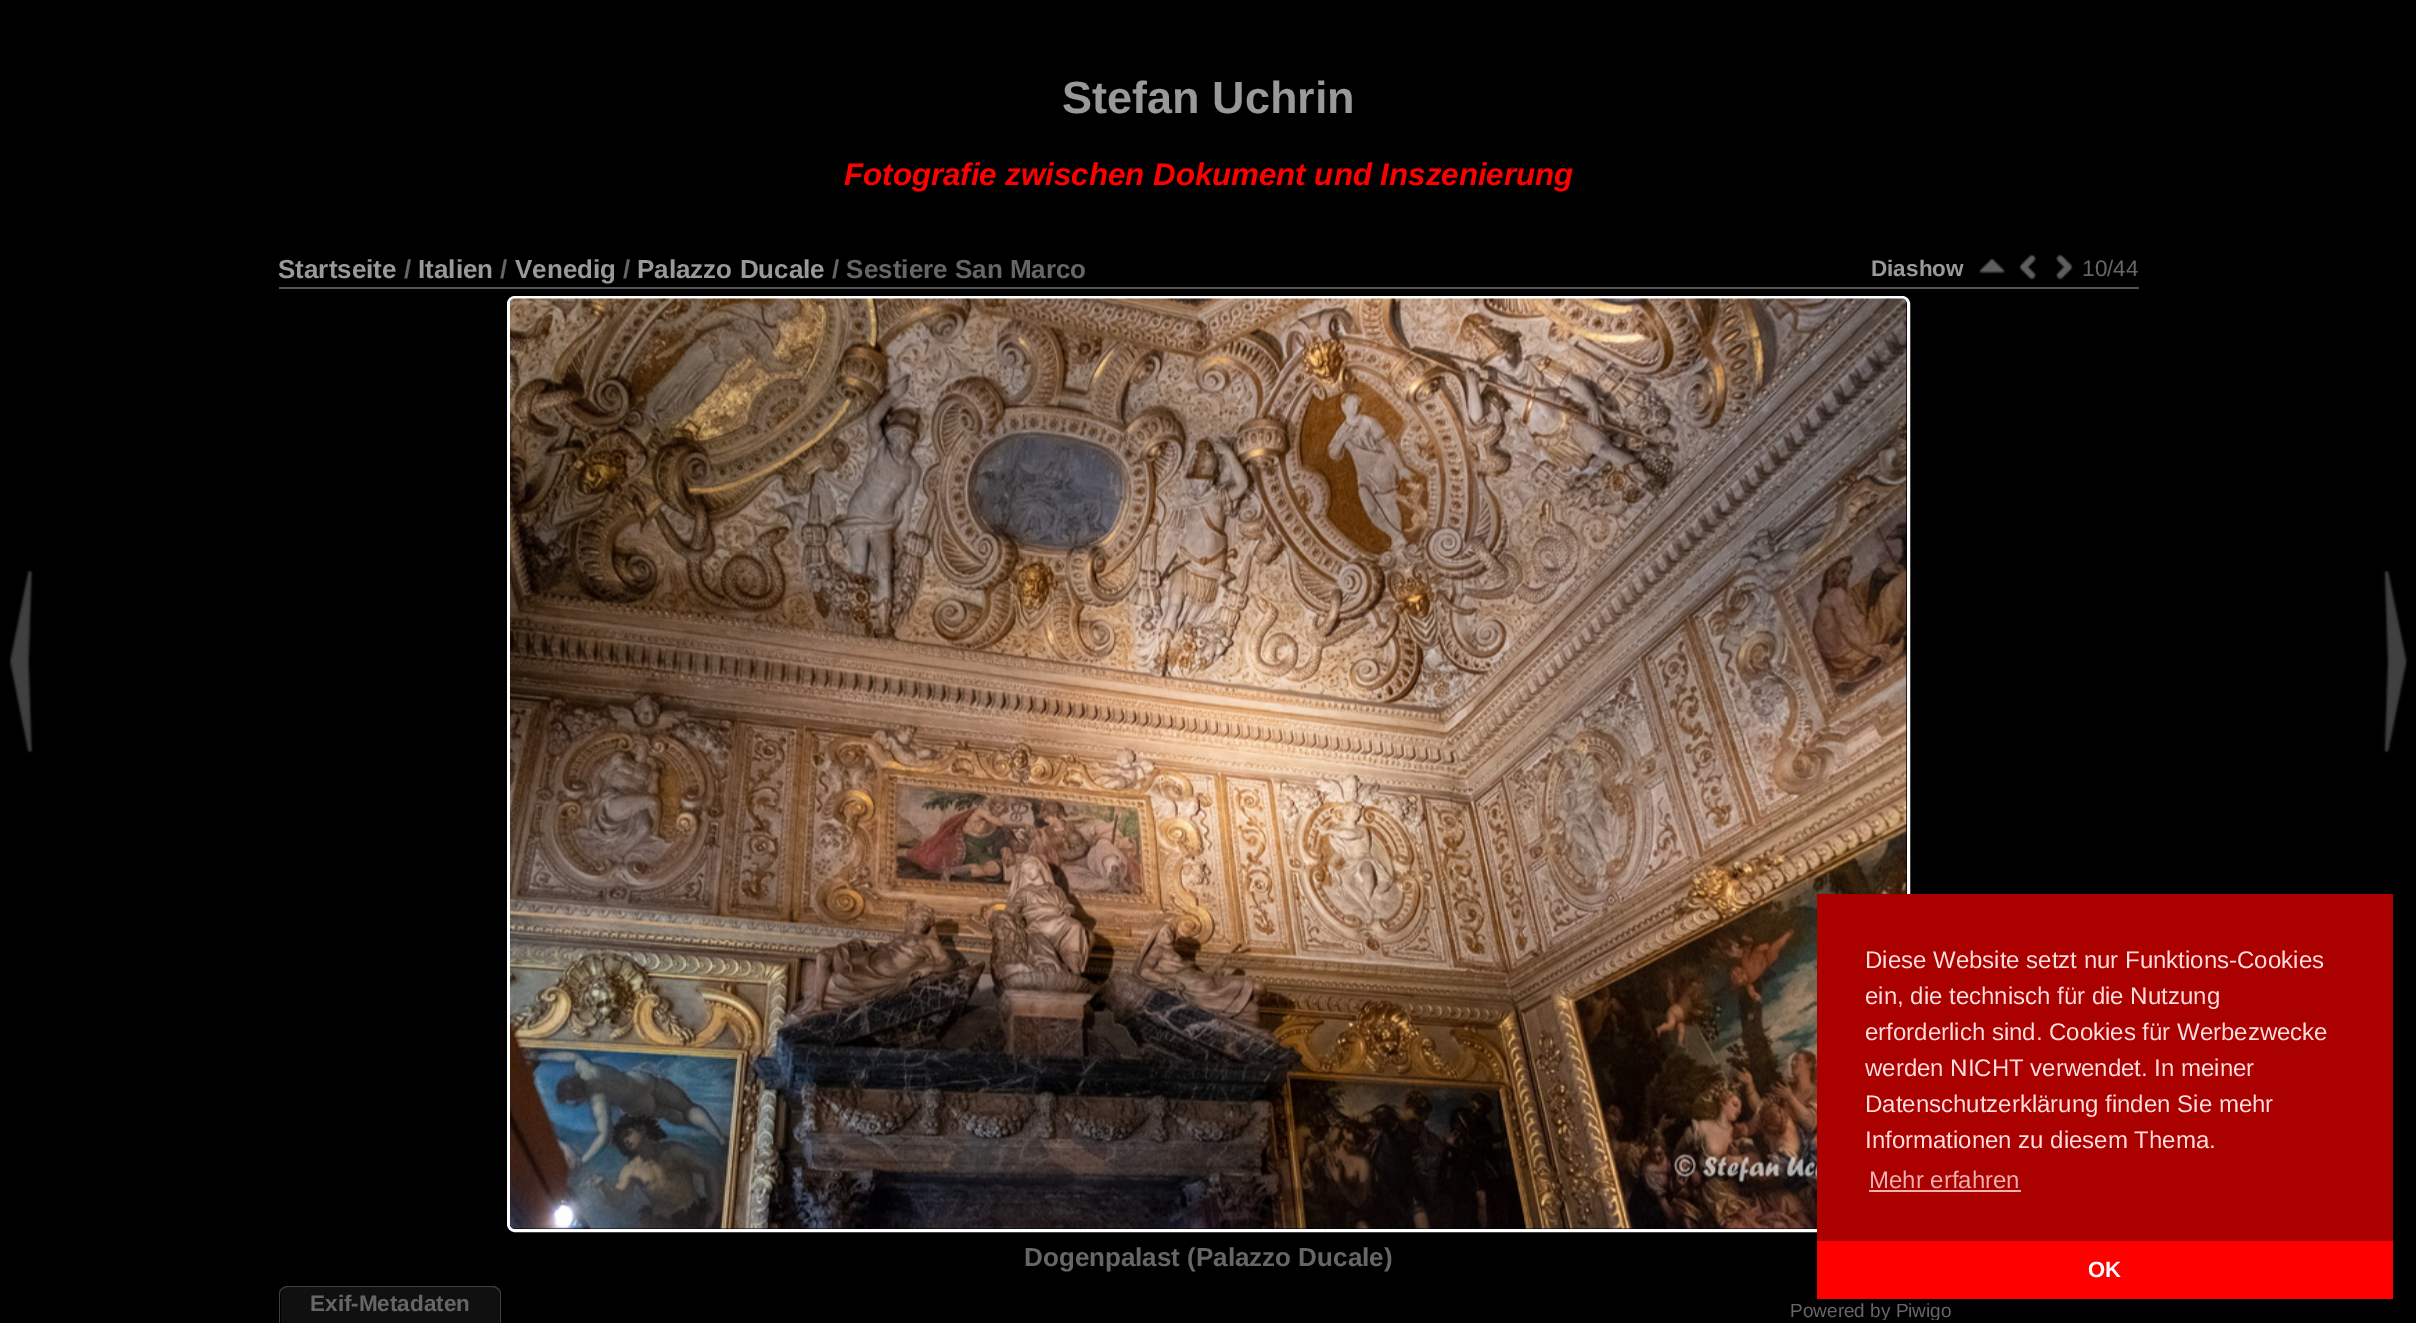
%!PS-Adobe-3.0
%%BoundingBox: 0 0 2416 1323
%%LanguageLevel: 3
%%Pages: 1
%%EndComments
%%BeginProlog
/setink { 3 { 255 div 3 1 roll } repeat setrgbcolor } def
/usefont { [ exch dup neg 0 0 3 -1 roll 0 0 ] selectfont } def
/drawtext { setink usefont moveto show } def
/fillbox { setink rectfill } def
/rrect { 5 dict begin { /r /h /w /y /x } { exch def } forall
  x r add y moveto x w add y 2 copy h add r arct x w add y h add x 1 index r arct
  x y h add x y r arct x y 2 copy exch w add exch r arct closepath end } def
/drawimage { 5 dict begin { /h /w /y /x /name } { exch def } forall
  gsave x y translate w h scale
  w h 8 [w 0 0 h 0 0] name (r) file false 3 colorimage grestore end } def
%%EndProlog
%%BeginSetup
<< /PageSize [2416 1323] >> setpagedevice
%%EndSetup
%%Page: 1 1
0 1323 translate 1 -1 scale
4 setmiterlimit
0 0 2416 1323 0 0 0 fillbox
(Stefan Uchrin) 1062 113 /LiberationSans-Bold 45 153 153 153 drawtext
(Fotografie zwischen Dokument und Inszenierung) 844 185 /LiberationSans-BoldItalic 31.25 255 0 0 drawtext
279 287 1860 2 85 85 85 fillbox
(Startseite) 278 278 /LiberationSans-Bold 26 153 153 153 drawtext
(/) 404 278 /LiberationSans-Bold 26 102 102 102 drawtext
(Italien) 418 278 /LiberationSans-Bold 26 153 153 153 drawtext
(/) 500 278 /LiberationSans-Bold 26 102 102 102 drawtext
(Venedig) 515 278 /LiberationSans-Bold 26 153 153 153 drawtext
(/) 623 278 /LiberationSans-Bold 26 102 102 102 drawtext
(Palazzo Ducale) 637 278 /LiberationSans-Bold 26 153 153 153 drawtext
(/ Sestiere San Marco) 832 278 /LiberationSans-Bold 26 102 102 102 drawtext
(Diashow) 1871 276 /LiberationSans-Bold 22.5 153 153 153 drawtext
(assets/img1.rgb) 1979 258 27 16 drawimage
(assets/img2.rgb) 2019 254 17 26 drawimage
(assets/img3.rgb) 2056 254 17 26 drawimage
(10/44) 2082 276 /LiberationSans-Regular 22.5 102 102 102 drawtext
(assets/img4.rgb) 9 570 24 183 drawimage
255 255 255 setink
3 setlinewidth
508.5 297.5 1400 933 6.5 rrect stroke
(assets/img5.rgb) 510 298 1397 931 drawimage
(assets/img6.rgb) 2383 570 25 183 drawimage
(Dogenpalast \(Palazzo Ducale\)) 1024 1266 /LiberationSans-Bold 26 102 102 102 drawtext
16 16 16 setink
289 1287 moveto 492 1287 lineto 496.5 1287 500 1290.5 500 1295 curveto 500 1323 lineto 281 1323 lineto 281 1295 lineto 281 1290.5 284.5 1287 289 1287 curveto closepath fill
64 64 64 setink
288 1286 moveto 492 1286 lineto 497 1286 501 1290 501 1294 curveto 501 1323 lineto 279 1323 lineto 279 1294 lineto 279 1290 283 1286 288 1286 curveto closepath 288 1287 moveto 492 1287 lineto 496 1287 500 1290 500 1294 curveto 500 1323 lineto 280 1323 lineto 280 1294 lineto 280 1290 284 1287 288 1287 curveto closepath eofill
(Exif-Metadaten) 310 1311 /LiberationSans-Bold 22.5 102 102 102 drawtext
gsave
1791 1302 162 18 rectclip
(Powered by Piwigo) 1790 1317 /LiberationSans-Regular 19 102 102 102 drawtext
grestore
1817 894 576 347 170 0 0 fillbox
(Diese Website setzt nur Funktions-Cookies) 1865 968 /LiberationSans-Regular 24 255 221 221 drawtext
(ein, die technisch für die Nutzung) 1865 1004 /LiberationSans-Regular 24 255 221 221 drawtext
(erforderlich sind. Cookies für Werbezwecke) 1865 1040 /LiberationSans-Regular 24 255 221 221 drawtext
(werden NICHT verwendet. In meiner) 1865 1076 /LiberationSans-Regular 24 255 221 221 drawtext
(Datenschutzerklärung finden Sie mehr) 1865 1112 /LiberationSans-Regular 24 255 221 221 drawtext
(Informationen zu diesem Thema.) 1865 1148 /LiberationSans-Regular 24 255 221 221 drawtext
(Mehr erfahren) 1869 1188 /LiberationSans-Regular 24 238 177 177 drawtext
1869 1190 152 2 238 177 177 fillbox
1817 1241 576 58 255 0 0 fillbox
(OK) 2088 1277 /LiberationSans-Bold 22 255 255 255 drawtext
showpage
%%EOF
